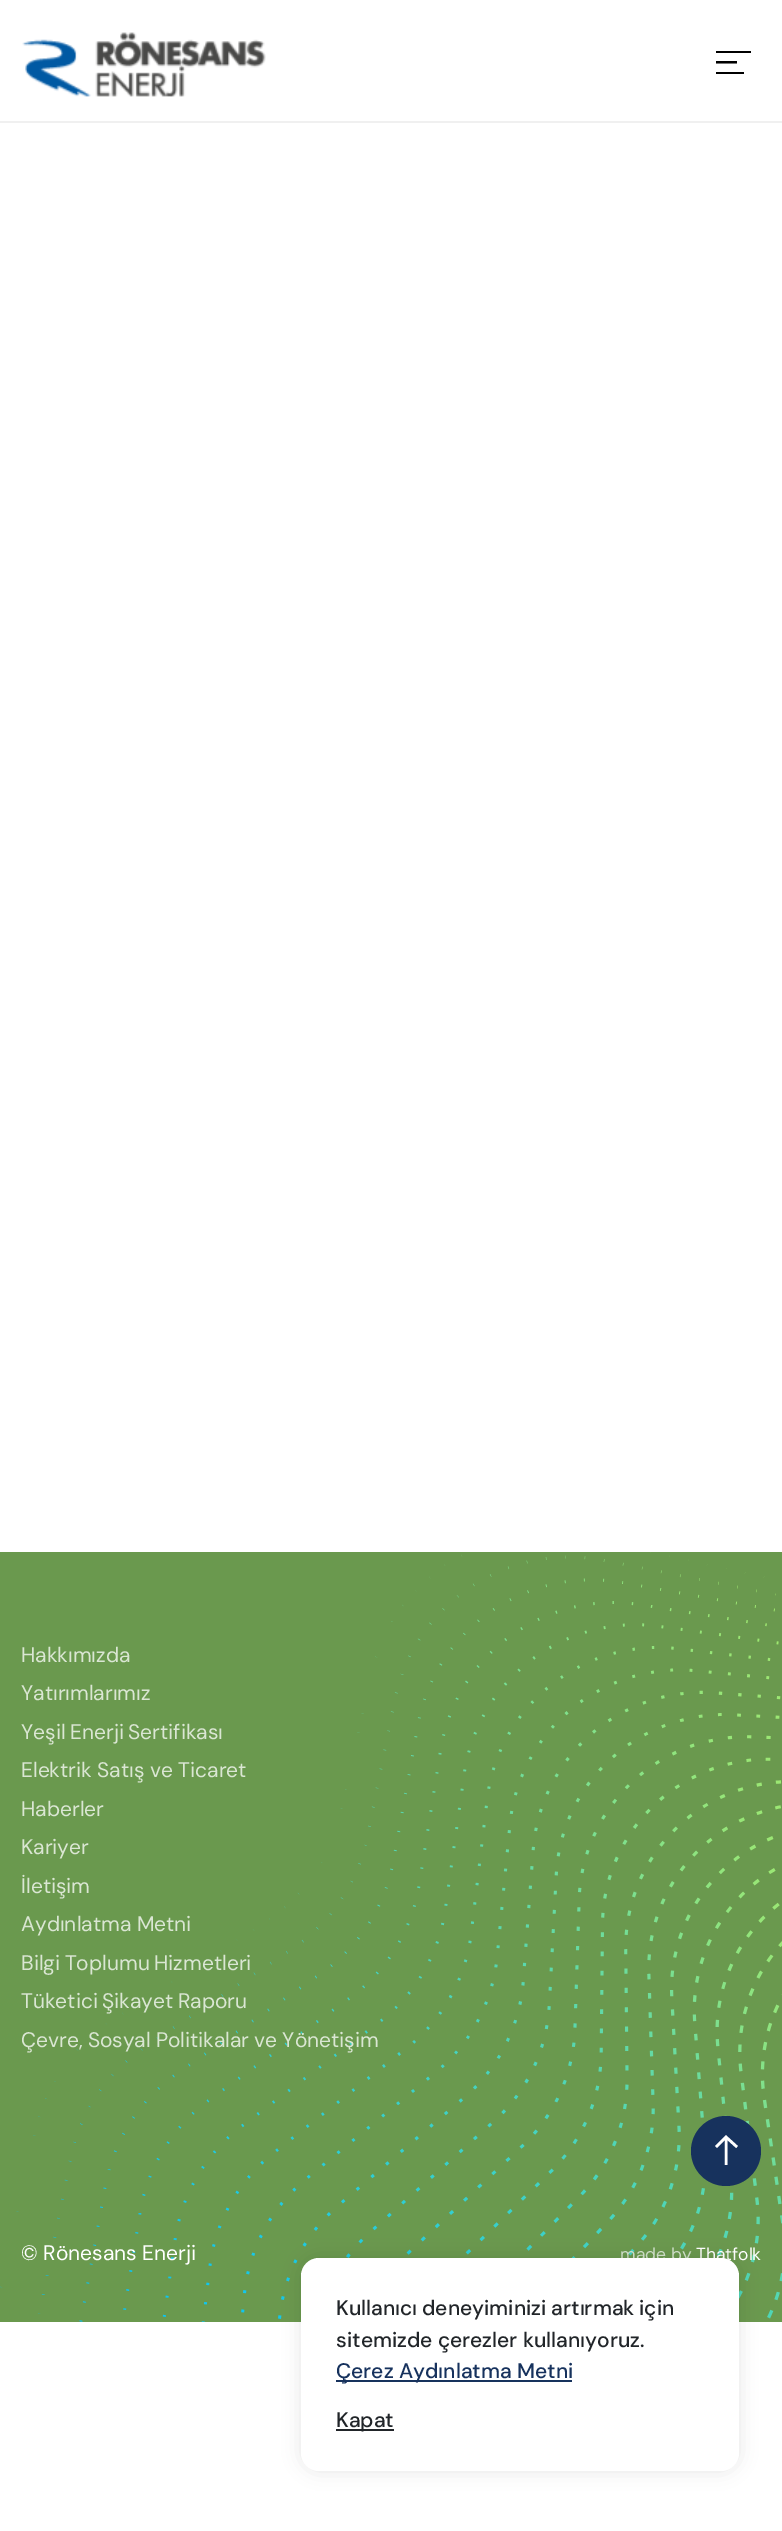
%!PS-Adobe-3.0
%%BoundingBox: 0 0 782 2531
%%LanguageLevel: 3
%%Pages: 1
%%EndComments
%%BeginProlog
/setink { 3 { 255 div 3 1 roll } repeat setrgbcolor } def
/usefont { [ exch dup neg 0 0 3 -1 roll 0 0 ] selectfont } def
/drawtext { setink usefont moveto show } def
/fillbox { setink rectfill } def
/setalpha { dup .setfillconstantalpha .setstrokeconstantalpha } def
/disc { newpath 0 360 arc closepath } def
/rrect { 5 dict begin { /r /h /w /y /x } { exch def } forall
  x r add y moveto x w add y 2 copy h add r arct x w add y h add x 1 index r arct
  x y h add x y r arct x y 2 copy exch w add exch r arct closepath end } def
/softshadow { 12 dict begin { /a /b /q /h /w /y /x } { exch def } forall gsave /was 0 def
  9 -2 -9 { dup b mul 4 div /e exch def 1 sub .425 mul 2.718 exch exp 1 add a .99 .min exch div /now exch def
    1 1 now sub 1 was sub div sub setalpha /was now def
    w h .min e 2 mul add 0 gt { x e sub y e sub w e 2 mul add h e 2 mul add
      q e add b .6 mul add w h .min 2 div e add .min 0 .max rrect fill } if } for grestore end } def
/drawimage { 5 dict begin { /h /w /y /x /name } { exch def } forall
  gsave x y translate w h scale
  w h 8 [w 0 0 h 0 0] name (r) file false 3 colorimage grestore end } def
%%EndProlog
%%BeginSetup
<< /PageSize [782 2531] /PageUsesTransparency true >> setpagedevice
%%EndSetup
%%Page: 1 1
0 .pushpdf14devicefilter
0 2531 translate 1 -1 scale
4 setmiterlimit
0 0 782 2531 255 255 255 fillbox
0 121 782 2 240 240 240 fillbox
(assets/img1.rgb) 22 32 244 65 drawimage
0 0 0 setink
716 51 moveto 751 51 lineto 751 53 lineto 716 53 lineto closepath 716 72 moveto 744 72 lineto 744 74 lineto 716 74 lineto closepath 716 61 moveto 737 61 lineto 737 63.5 lineto 716 63.5 lineto closepath eofill
0 1552 782 770 106 153 78 fillbox
(assets/img2.rgb) 0 1552 782 770 drawimage
(Hakkımızda) 21 1662 /DMSans-Regular 21 218 230 211 drawtext
(Yatırımlarımız) 21 1700 /DMSans-Regular 21 218 230 211 drawtext
21 1739 moveto -1 0 32 (Yeşil Enerji Sertifikası) widthshow
(Elektrik Satış ve Ticaret) 21 1777 /DMSans-Regular 21 218 230 211 drawtext
(Haberler) 21 1816 /DMSans-Regular 21 218 230 211 drawtext
(Kariyer) 21 1854 /DMSans-Regular 21 218 230 211 drawtext
(İletişim) 21 1893 /DMSans-Regular 21 218 230 211 drawtext
(Aydınlatma Metni) 21 1931 /DMSans-Regular 21 218 230 211 drawtext
21 1970 moveto -1 0 32 (Bilgi Toplumu Hizmetleri) widthshow
21 2008 moveto -1 0 32 (Tüketici Şikayet Raporu) widthshow
21 2047 moveto -0.5 0 32 (Çevre, Sosyal Politikalar ve Yönetişim) widthshow
23 50 93 setink
726 2151 35 disc fill
255 255 255 setink
2.6 setlinewidth
716 2147 moveto 726 2137 lineto 737 2147 lineto 726 2137 moveto 726 2165 lineto stroke
(© Rönesans Enerji) 21 2260 /DMSans-Regular 21 255 255 255 drawtext
(made by) 620 2260 /DMSans-Regular 17.5 210 225 203 drawtext
(Thatfolk) 696 2260 /DMSans-Regular 17.5 255 255 255 drawtext
0 0 0 setink
301 2258 438 213 18 9 0.1 softshadow
255 255 255 setink
301 2258 438 213 18 rrect fill
/DMSans-Medium 21 usefont
33 37 41 setink
336 2315 moveto -0.5 0 32 (Kullanıcı deneyiminizi artırmak için) widthshow
(sitemizde çerezler kullanıyoruz.) 336 2347 /DMSans-Medium 21 33 37 41 drawtext
336 2380 236 2 23 50 93 fillbox
(Çerez Aydınlatma Metni) 336 2378 /DMSans-Medium 21 23 50 93 drawtext
336 2429 58 2 33 37 41 fillbox
(Kapat) 336 2427 /DMSans-Medium 21 33 37 41 drawtext
.poppdf14devicefilter showpage
%%EOF
